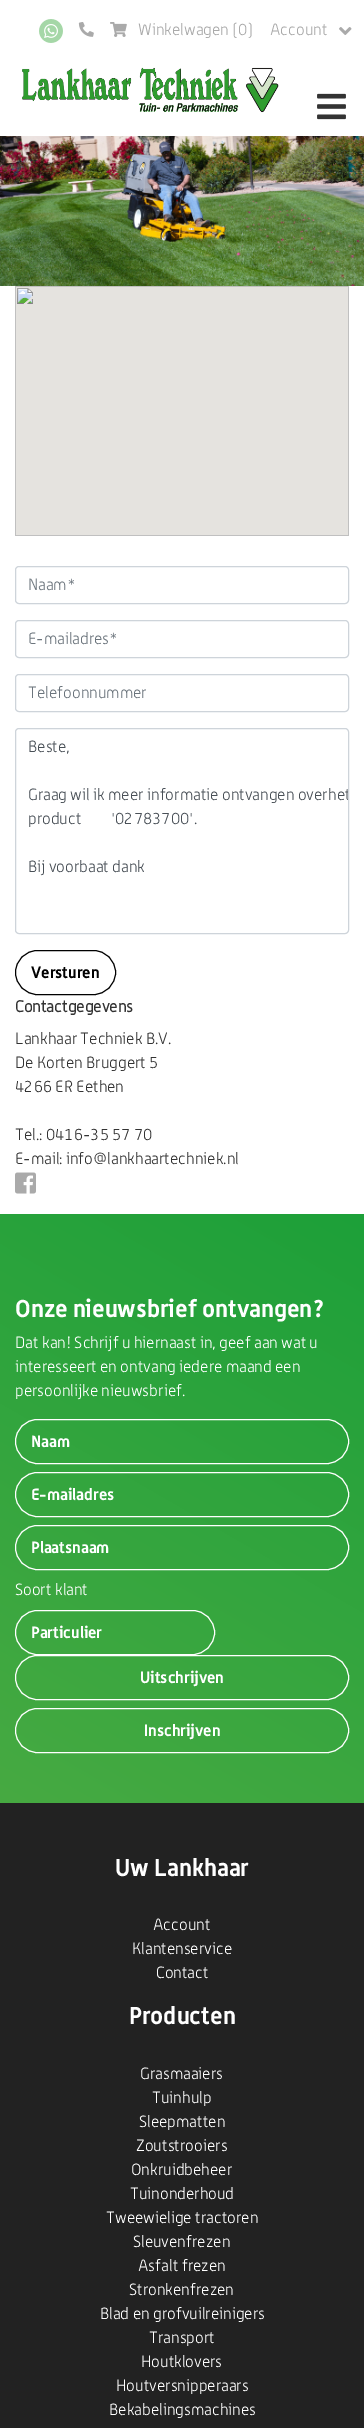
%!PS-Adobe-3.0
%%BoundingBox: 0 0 364 2428
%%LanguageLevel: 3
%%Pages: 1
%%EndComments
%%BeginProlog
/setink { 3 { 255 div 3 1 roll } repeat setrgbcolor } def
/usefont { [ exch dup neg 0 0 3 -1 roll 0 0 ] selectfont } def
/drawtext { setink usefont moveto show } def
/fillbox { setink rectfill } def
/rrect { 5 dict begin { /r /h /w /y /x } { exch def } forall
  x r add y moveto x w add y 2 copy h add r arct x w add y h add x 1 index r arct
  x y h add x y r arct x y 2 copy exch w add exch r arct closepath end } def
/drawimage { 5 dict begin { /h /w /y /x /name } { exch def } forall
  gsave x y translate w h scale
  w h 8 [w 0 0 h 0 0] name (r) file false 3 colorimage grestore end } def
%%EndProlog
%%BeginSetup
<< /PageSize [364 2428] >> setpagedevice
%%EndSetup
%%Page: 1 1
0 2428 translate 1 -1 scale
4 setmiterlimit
0 0 364 2428 255 255 255 fillbox
(assets/img1.rgb) 39 19 24 24 drawimage
(assets/img2.rgb) 78 22 16 15 drawimage
(assets/img3.rgb) 110 22 17 15 drawimage
(Winkelwagen \(0\)) 138 35 /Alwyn-Light 16 170 170 170 drawtext
(Account) 270 35 /Alwyn-Light 16 170 170 170 drawtext
(assets/img4.rgb) 339 27 13 8 drawimage
(assets/img5.rgb) 22 67 257 46 drawimage
(assets/img6.rgb) 317 93 29 27 drawimage
(assets/img7.rgb) 0 136 364 150 drawimage
(assets/img8.rgb) 15 286 334 250 drawimage
206 212 218 setink
15.5 566.5 333 37 3.5 rrect stroke
(Naam*) 28 590 /Alwyn-Light 16 108 117 125 drawtext
206 212 218 setink
15.5 620.5 333 37 3.5 rrect stroke
(E-mailadres*) 28 644 /Alwyn-Light 16 108 117 125 drawtext
206 212 218 setink
15.5 674.5 333 37 3.5 rrect stroke
(Telefoonnummer) 28 698 /Alwyn-Light 16 108 117 125 drawtext
206 212 218 setink
15.5 728.5 333 205 3.5 rrect stroke
(Beste,) 28 752 /Alwyn-Light 16 73 80 87 drawtext
(Graag wil ik meer informatie ontvangen over) 28 800 /Alwyn-Light 16 73 80 87 drawtext
gsave
16 729 332 204 3 rrect clip newpath
(het) 328 800 /Alwyn-Light 16 73 80 87 drawtext
grestore
28 824 moveto 26 0 32 (product '02783700'.) widthshow
(Bij voorbaat dank) 28 872 /Alwyn-Light 16 73 80 87 drawtext
0 0 0 setink
15.5 950.5 100 44 22 rrect stroke
(Versturen) 31 978 /Alwyn-Bold 16 0 0 0 drawtext
(Contactgegevens) 15 1012 /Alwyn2-Bold 16 51 51 51 drawtext
(Lankhaar Techniek B.V.) 15 1044 /Alwyn-Light 16 51 51 51 drawtext
(De Korten Bruggert 5) 15 1068 /Alwyn-Light 16 51 51 51 drawtext
(4266 ER Eethen) 15 1092 /Alwyn-Light 16 51 51 51 drawtext
(Tel.: 0416-35 57 70) 15 1140 /Alwyn-Light 16 51 51 51 drawtext
(E-mail: info@lankhaartechniek.nl) 15 1164 /Alwyn-Light 16 51 51 51 drawtext
(assets/img9.rgb) 15 1172 21 22 drawimage
gsave 0 1214 moveto 364 1214 lineto 364 1803 lineto 0 1803 lineto closepath clip newpath
<< /ShadingType 2 /ColorSpace /DeviceRGB /Coords [355 1209 9 1808] /Extend [true true] /Function << /FunctionType 2 /Domain [0 1] /C0 [0.114 0.627 0.224] /C1 [0.278 0.667 0.259] /N 1 >> >> shfill grestore
(Onze nieuwsbrief ontvangen?) 15 1317 /Alwyn-Bold 24 255 255 255 drawtext
(Dat kan! Schrijf u hiernaast in, geef aan wat u) 15 1348 /Alwyn-Light 16 255 255 255 drawtext
(interesseert en ontvang iedere maand een) 15 1372 /Alwyn-Light 16 255 255 255 drawtext
(persoonlijke nieuwsbrief.) 15 1396 /Alwyn-Light 16 255 255 255 drawtext
15.5 1419.5 333 44 22 rrect stroke
(Naam) 31 1447 /Alwyn-Bold 16 255 255 255 drawtext
15.5 1472.5 333 44 22 rrect stroke
(E-mailadres) 31 1500 /Alwyn-Bold 16 255 255 255 drawtext
15.5 1525.5 333 44 22 rrect stroke
(Plaatsnaam) 31 1553 /Alwyn-Bold 16 255 255 255 drawtext
(Soort klant) 15 1595 /Alwyn-Light 16 255 255 255 drawtext
15.5 1610.5 199 44 22 rrect stroke
(Particulier) 31 1638 /Alwyn-Bold 16 255 255 255 drawtext
15.5 1655.5 333 44 22 rrect stroke
(Uitschrijven) 140 1683 /Alwyn-Bold 16 255 255 255 drawtext
15.5 1708.5 333 44 22 rrect stroke
(Inschrijven) 144 1736 /Alwyn-Bold 16 255 255 255 drawtext
0 1803 364 625 34 34 34 fillbox
(Uw Lankhaar) 115 1876 /Alwyn-Bold 24 255 255 255 drawtext
(Account) 153 1930 /Alwyn-Light 16 255 255 255 drawtext
(Klantenservice) 132 1954 /Alwyn-Light 16 255 255 255 drawtext
(Contact) 156 1978 /Alwyn-Light 16 255 255 255 drawtext
(Producten) 129 2024 /Alwyn-Bold 24 255 255 255 drawtext
(Grasmaaiers) 140 2079 /Alwyn-Light 16 255 255 255 drawtext
(Tuinhulp) 152 2103 /Alwyn-Light 16 255 255 255 drawtext
(Sleepmatten) 139 2127 /Alwyn-Light 16 255 255 255 drawtext
(Zoutstrooiers) 136 2151 /Alwyn-Light 16 255 255 255 drawtext
(Onkruidbeheer) 131 2175 /Alwyn-Light 16 255 255 255 drawtext
(Tuinonderhoud) 130 2199 /Alwyn-Light 16 255 255 255 drawtext
(Tweewielige tractoren) 106 2223 /Alwyn-Light 16 255 255 255 drawtext
(Sleuvenfrezen) 133 2247 /Alwyn-Light 16 255 255 255 drawtext
(Asfalt frezen) 138 2271 /Alwyn-Light 16 255 255 255 drawtext
(Stronkenfrezen) 129 2295 /Alwyn-Light 16 255 255 255 drawtext
(Blad en grofvuilreinigers) 100 2319 /Alwyn-Light 16 255 255 255 drawtext
(Transport) 149 2343 /Alwyn-Light 16 255 255 255 drawtext
(Houtklovers) 141 2367 /Alwyn-Light 16 255 255 255 drawtext
(Houtversnipperaars) 116 2391 /Alwyn-Light 16 255 255 255 drawtext
(Bekabelingsmachines) 109 2415 /Alwyn-Light 16 255 255 255 drawtext
showpage
%%EOF
